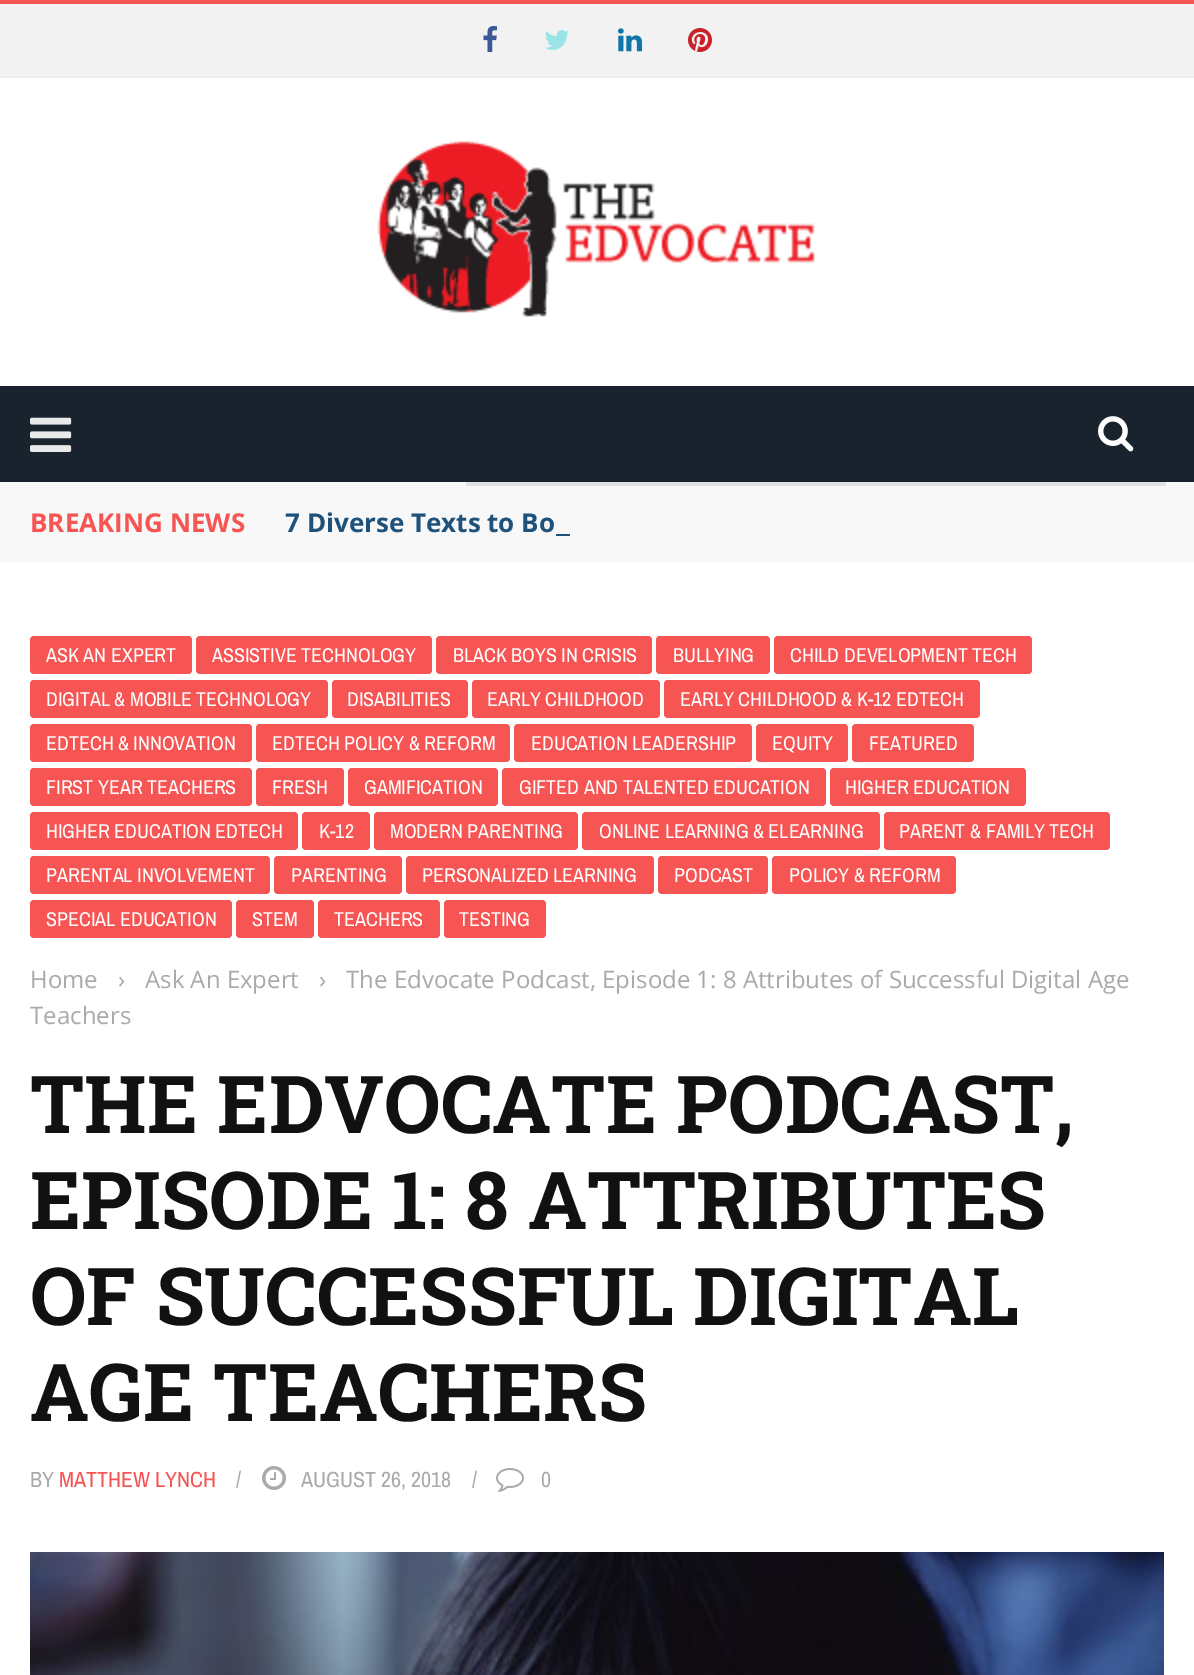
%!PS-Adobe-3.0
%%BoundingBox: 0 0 1194 1675
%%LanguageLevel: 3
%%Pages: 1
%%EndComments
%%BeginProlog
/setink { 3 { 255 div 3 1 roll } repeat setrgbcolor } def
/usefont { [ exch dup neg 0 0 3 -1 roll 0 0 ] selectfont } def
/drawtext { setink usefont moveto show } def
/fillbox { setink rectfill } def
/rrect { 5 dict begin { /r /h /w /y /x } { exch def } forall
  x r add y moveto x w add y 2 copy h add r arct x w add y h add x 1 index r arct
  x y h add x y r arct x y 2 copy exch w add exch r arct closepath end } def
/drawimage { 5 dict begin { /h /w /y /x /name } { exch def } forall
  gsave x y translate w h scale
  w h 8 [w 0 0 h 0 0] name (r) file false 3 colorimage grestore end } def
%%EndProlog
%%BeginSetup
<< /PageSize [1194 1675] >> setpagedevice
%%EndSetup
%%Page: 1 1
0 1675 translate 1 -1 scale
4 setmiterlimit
0 0 1194 1675 255 255 255 fillbox
0 4 1194 72 242 242 242 fillbox
0 0 1194 4 247 84 84 fillbox
0 76 1194 2 238 238 238 fillbox
(assets/img1.rgb) 483 26 14 26 drawimage
(assets/img2.rgb) 545 30 24 20 drawimage
(assets/img3.rgb) 618 28 24 24 drawimage
(assets/img4.rgb) 688 28 24 24 drawimage
(assets/img5.rgb) 377 141 438 176 drawimage
0 386 1194 96 25 35 45 fillbox
(assets/img6.rgb) 30 417 42 35 drawimage
(assets/img7.rgb) 1098 416 36 36 drawimage
0 482 1194 80 248 248 248 fillbox
466 482 700 4 224 226 230 fillbox
(BREAKING NEWS) 30 532 /OpenSans-Bold 26 247 84 84 drawtext
(7 Diverse Texts to Bo) 285 532 /OpenSans-Bold 26 31 82 123 drawtext
556 534 14 2 31 82 123 fillbox
247 84 84 setink
30 636 162 38 4 rrect fill
(ASK AN EXPERT) 46 662 /ArchivoNarrow-Regular 20 255 255 255 drawtext
247 84 84 setink
196 636 236 38 4 rrect fill
(ASSISTIVE TECHNOLOGY) 212 662 /ArchivoNarrow-Regular 20 255 255 255 drawtext
247 84 84 setink
436 636 216 38 4 rrect fill
(BLACK BOYS IN CRISIS) 453 662 /ArchivoNarrow-Regular 20 255 255 255 drawtext
247 84 84 setink
656 636 114 38 4 rrect fill
(BULLYING) 673 662 /ArchivoNarrow-Regular 20 255 255 255 drawtext
247 84 84 setink
774 636 258 38 4 rrect fill
(CHILD DEVELOPMENT TECH) 790 662 /ArchivoNarrow-Regular 20 255 255 255 drawtext
247 84 84 setink
30 680 298 38 4 rrect fill
(DIGITAL & MOBILE TECHNOLOGY) 46 706 /ArchivoNarrow-Regular 20 255 255 255 drawtext
247 84 84 setink
332 680 136 38 4 rrect fill
(DISABILITIES) 347 706 /ArchivoNarrow-Regular 20 255 255 255 drawtext
247 84 84 setink
472 680 188 38 4 rrect fill
(EARLY CHILDHOOD) 487 706 /ArchivoNarrow-Regular 20 255 255 255 drawtext
247 84 84 setink
664 680 316 38 4 rrect fill
(EARLY CHILDHOOD & K-12 EDTECH) 680 706 /ArchivoNarrow-Regular 20 255 255 255 drawtext
247 84 84 setink
30 724 222 38 4 rrect fill
(EDTECH & INNOVATION) 46 750 /ArchivoNarrow-Regular 20 255 255 255 drawtext
247 84 84 setink
256 724 254 38 4 rrect fill
(EDTECH POLICY & REFORM) 272 750 /ArchivoNarrow-Regular 20 255 255 255 drawtext
247 84 84 setink
514 724 238 38 4 rrect fill
(EDUCATION LEADERSHIP) 531 750 /ArchivoNarrow-Regular 20 255 255 255 drawtext
247 84 84 setink
756 724 92 38 4 rrect fill
(EQUITY) 772 750 /ArchivoNarrow-Regular 20 255 255 255 drawtext
247 84 84 setink
852 724 122 38 4 rrect fill
(FEATURED) 869 750 /ArchivoNarrow-Regular 20 255 255 255 drawtext
247 84 84 setink
30 768 222 38 4 rrect fill
(FIRST YEAR TEACHERS) 46 794 /ArchivoNarrow-Regular 20 255 255 255 drawtext
247 84 84 setink
256 768 88 38 4 rrect fill
(FRESH) 272 794 /ArchivoNarrow-Regular 20 255 255 255 drawtext
247 84 84 setink
348 768 150 38 4 rrect fill
(GAMIFICATION) 364 794 /ArchivoNarrow-Regular 20 255 255 255 drawtext
247 84 84 setink
502 768 324 38 4 rrect fill
(GIFTED AND TALENTED EDUCATION) 519 794 /ArchivoNarrow-Regular 20 255 255 255 drawtext
247 84 84 setink
830 768 196 38 4 rrect fill
(HIGHER EDUCATION) 845 794 /ArchivoNarrow-Regular 20 255 255 255 drawtext
247 84 84 setink
30 812 268 38 4 rrect fill
(HIGHER EDUCATION EDTECH) 46 838 /ArchivoNarrow-Regular 20 255 255 255 drawtext
247 84 84 setink
302 812 68 38 4 rrect fill
(K-12) 319 838 /ArchivoNarrow-Regular 20 255 255 255 drawtext
247 84 84 setink
374 812 204 38 4 rrect fill
(MODERN PARENTING) 390 838 /ArchivoNarrow-Regular 20 255 255 255 drawtext
247 84 84 setink
582 812 298 38 4 rrect fill
(ONLINE LEARNING & ELEARNING) 599 838 /ArchivoNarrow-Regular 20 255 255 255 drawtext
247 84 84 setink
884 812 226 38 4 rrect fill
(PARENT & FAMILY TECH) 899 838 /ArchivoNarrow-Regular 20 255 255 255 drawtext
247 84 84 setink
30 856 240 38 4 rrect fill
(PARENTAL INVOLVEMENT) 46 882 /ArchivoNarrow-Regular 20 255 255 255 drawtext
247 84 84 setink
274 856 128 38 4 rrect fill
(PARENTING) 291 882 /ArchivoNarrow-Regular 20 255 255 255 drawtext
247 84 84 setink
406 856 248 38 4 rrect fill
(PERSONALIZED LEARNING) 422 882 /ArchivoNarrow-Regular 20 255 255 255 drawtext
247 84 84 setink
658 856 110 38 4 rrect fill
(PODCAST) 674 882 /ArchivoNarrow-Regular 20 255 255 255 drawtext
247 84 84 setink
772 856 184 38 4 rrect fill
(POLICY & REFORM) 789 882 /ArchivoNarrow-Regular 20 255 255 255 drawtext
247 84 84 setink
30 900 202 38 4 rrect fill
(SPECIAL EDUCATION) 46 926 /ArchivoNarrow-Regular 20 255 255 255 drawtext
247 84 84 setink
236 900 78 38 4 rrect fill
(STEM) 252 926 /ArchivoNarrow-Regular 20 255 255 255 drawtext
247 84 84 setink
318 900 122 38 4 rrect fill
(TEACHERS) 334 926 /ArchivoNarrow-Regular 20 255 255 255 drawtext
247 84 84 setink
444 900 102 38 4 rrect fill
(TESTING) 459 926 /ArchivoNarrow-Regular 20 255 255 255 drawtext
(Home) 30 988 /OpenSans-Regular 24 170 170 170 drawtext
(›) 118 988 /OpenSans-Regular 24 170 170 170 drawtext
(Ask An Expert) 145 988 /OpenSans-Regular 24 170 170 170 drawtext
(›) 319 988 /OpenSans-Regular 24 170 170 170 drawtext
(The Edvocate Podcast, Episode 1: 8 Attributes of Successful Digital Age) 346 988 /OpenSans-Regular 24 170 170 170 drawtext
(Teachers) 30 1024 /OpenSans-Regular 24 170 170 170 drawtext
(THE EDVOCATE PODCAST,) 30 1133 /RobotoSlab-Bold 80 17 17 17 drawtext
(EPISODE 1: 8 ATTRIBUTES) 30 1229 /RobotoSlab-Bold 80 17 17 17 drawtext
(OF SUCCESSFUL DIGITAL) 30 1325 /RobotoSlab-Bold 80 17 17 17 drawtext
(AGE TEACHERS) 30 1421 /RobotoSlab-Bold 80 17 17 17 drawtext
(BY) 30 1487 /ArchivoNarrow-Regular 22 170 170 170 drawtext
(MATTHEW LYNCH) 59 1487 /ArchivoNarrow-Regular 22 247 84 84 drawtext
(/) 236 1487 /ArchivoNarrow-Regular 22 170 170 170 drawtext
(assets/img8.rgb) 262 1466 24 24 drawimage
(AUGUST 26, 2018) 301 1487 /ArchivoNarrow-Regular 22 170 170 170 drawtext
(/) 472 1487 /ArchivoNarrow-Regular 22 170 170 170 drawtext
(assets/img9.rgb) 496 1468 28 24 drawimage
(0) 541 1487 /ArchivoNarrow-Regular 22 170 170 170 drawtext
(assets/img10.rgb) 30 1552 1134 123 drawimage
showpage
%%EOF
